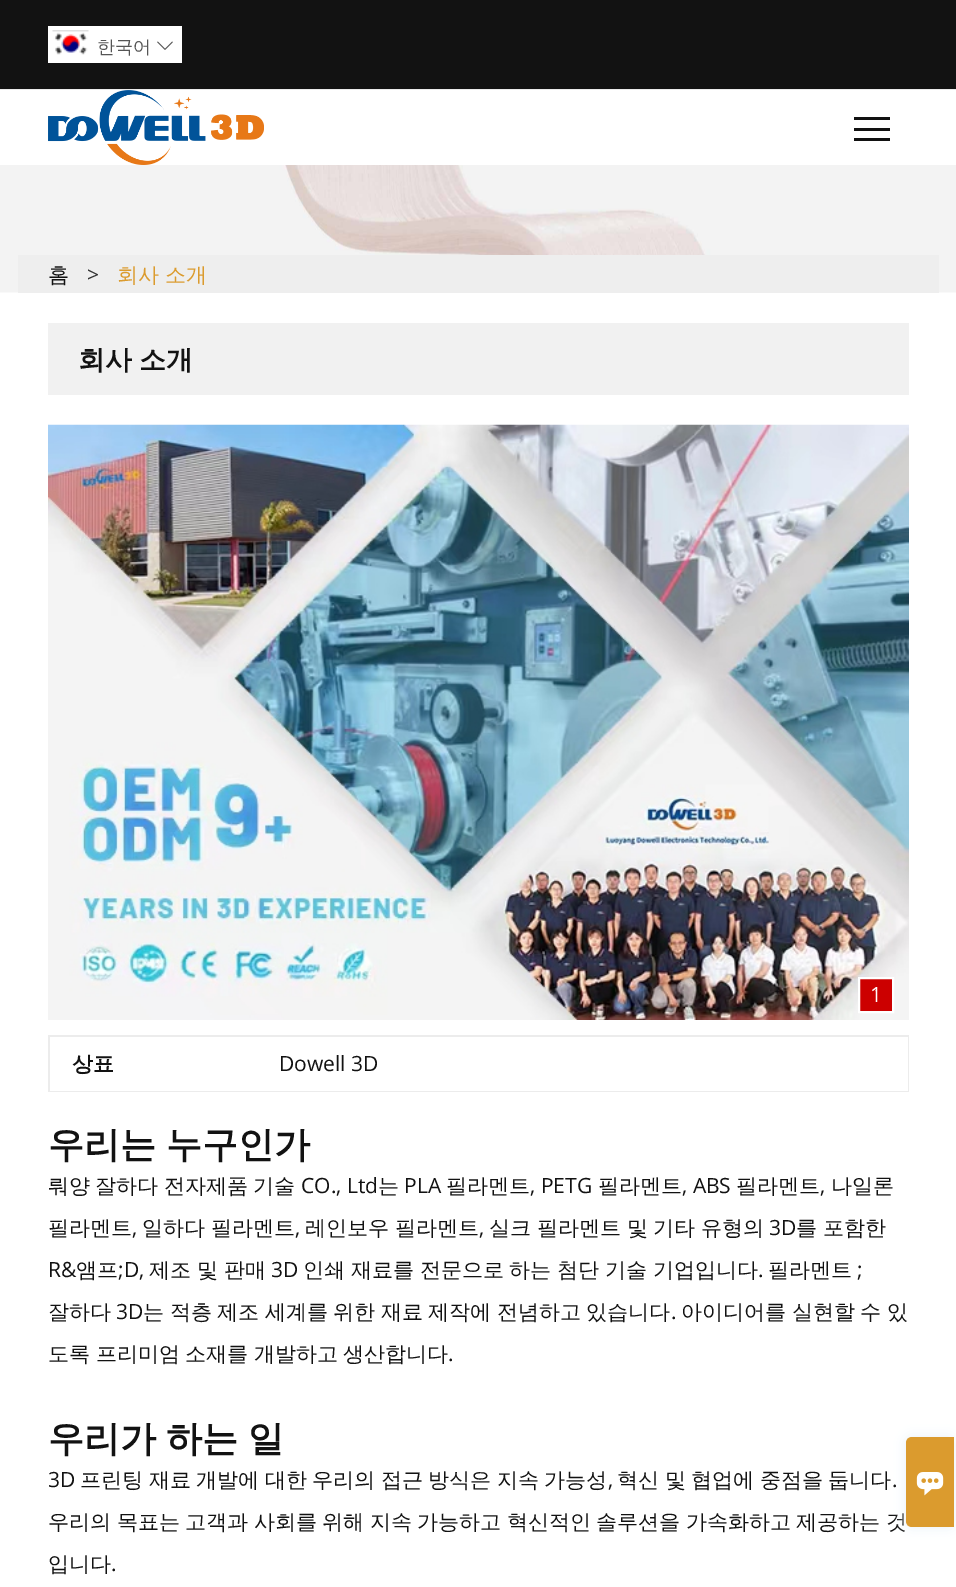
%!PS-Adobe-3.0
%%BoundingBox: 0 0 956 1587
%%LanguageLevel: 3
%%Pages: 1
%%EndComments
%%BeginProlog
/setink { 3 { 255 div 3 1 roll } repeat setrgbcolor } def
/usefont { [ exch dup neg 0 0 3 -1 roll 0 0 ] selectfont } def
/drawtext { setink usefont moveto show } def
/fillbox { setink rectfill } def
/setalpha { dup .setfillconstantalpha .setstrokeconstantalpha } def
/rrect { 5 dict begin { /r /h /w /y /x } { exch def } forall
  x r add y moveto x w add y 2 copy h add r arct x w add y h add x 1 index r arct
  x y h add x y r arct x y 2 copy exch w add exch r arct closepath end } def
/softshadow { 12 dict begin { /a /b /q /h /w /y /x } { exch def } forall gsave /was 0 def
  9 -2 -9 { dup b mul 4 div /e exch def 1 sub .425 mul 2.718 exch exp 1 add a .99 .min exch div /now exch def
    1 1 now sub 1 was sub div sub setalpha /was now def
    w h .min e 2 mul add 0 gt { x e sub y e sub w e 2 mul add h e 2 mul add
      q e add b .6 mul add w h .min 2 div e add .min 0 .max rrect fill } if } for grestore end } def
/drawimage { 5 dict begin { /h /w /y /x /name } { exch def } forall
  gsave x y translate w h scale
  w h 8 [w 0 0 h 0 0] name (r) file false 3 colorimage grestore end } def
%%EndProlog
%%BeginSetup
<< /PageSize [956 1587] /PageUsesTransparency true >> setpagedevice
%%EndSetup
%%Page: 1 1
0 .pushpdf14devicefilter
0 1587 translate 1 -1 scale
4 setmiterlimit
0 0 956 1587 255 255 255 fillbox
0 0 956 89 18 18 18 fillbox
0 89 956 1 235 235 235 fillbox
48 26 134 37 255 255 255 fillbox
(assets/img1.rgb) 52 30 37 25 drawimage
(한국어) 97 53 /WenQuanYiZenHei-Medium 18 85 85 85 drawtext
(assets/img2.rgb) 157 41 16 9 drawimage
(assets/img3.rgb) 48 90 216 75 drawimage
854 128 36 3 18 18 18 fillbox
854 117 36 3 18 18 18 fillbox
854 138 36 3 18 18 18 fillbox
(assets/img4.rgb) 0 165 956 128 drawimage
18 255 921 38 238 238 238 fillbox
(홈) 48 282 /WenQuanYiZenHei-Medium 21 18 18 18 drawtext
(>) 87 282 /OpenSans-Regular 21 51 51 51 drawtext
/WenQuanYiZenHei-Medium 21 usefont
219 155 46 setink
117 282 moveto -0.75 0 32 (회사 소개) widthshow
48 323 861 72 241 241 241 fillbox
/WenQuanYiZenHei-Bold 27 usefont
18 18 18 setink
78 369 moveto -1 0 32 (회사 소개) widthshow
(assets/img5.rgb) 48 424 861 596 drawimage
204 0 0 setink
859 978 moveto 893 978 lineto 893 1012 lineto 859 1012 lineto closepath gsave fill grestore
255 255 255 setink
2 setlinewidth
stroke
(1) 870 1002 /OpenSans-Regular 21 255 255 255 drawtext
48 1035 861 57 236 236 236 fillbox
50 1037 858 54 255 255 255 fillbox
(상표) 72 1071 /WenQuanYiZenHei-Bold 21 18 18 18 drawtext
(Dowell 3D) 279 1071 /OpenSans-Regular 21 18 18 18 drawtext
/WenQuanYiZenHei-Bold 36 usefont
48 1157 moveto -1 0 32 (우리는 누구인가) widthshow
(뤄양) 48 1193 /WenQuanYiZenHei-Medium 21 18 18 18 drawtext
(잘하다) 95 1193 /WenQuanYiZenHei-Medium 21 18 18 18 drawtext
(전자제품) 164 1193 /WenQuanYiZenHei-Medium 21 18 18 18 drawtext
(기술) 253 1193 /WenQuanYiZenHei-Medium 21 18 18 18 drawtext
(CO., Ltd) 301 1193 /OpenSans-Regular 21 18 18 18 drawtext
(는) 378 1193 /WenQuanYiZenHei-Medium 21 18 18 18 drawtext
(PLA) 404 1193 /OpenSans-Regular 21 18 18 18 drawtext
(필라멘트) 446 1193 /WenQuanYiZenHei-Medium 21 18 18 18 drawtext
(, PETG) 530 1193 /OpenSans-Regular 21 18 18 18 drawtext
(필라멘트) 598 1193 /WenQuanYiZenHei-Medium 21 18 18 18 drawtext
(, ABS) 682 1193 /OpenSans-Regular 21 18 18 18 drawtext
(필라멘트) 736 1193 /WenQuanYiZenHei-Medium 21 18 18 18 drawtext
(,) 820 1193 /OpenSans-Regular 21 18 18 18 drawtext
(나일론) 831 1193 /WenQuanYiZenHei-Medium 21 18 18 18 drawtext
(필라멘트) 48 1235 /WenQuanYiZenHei-Medium 21 18 18 18 drawtext
(,) 132 1235 /OpenSans-Regular 21 18 18 18 drawtext
/WenQuanYiZenHei-Medium 21 usefont
142 1235 moveto -0.5 0 32 (일하다 필라멘트) widthshow
(,) 295 1235 /OpenSans-Regular 21 18 18 18 drawtext
/WenQuanYiZenHei-Medium 21 usefont
305 1235 moveto -0.5 0 32 (레인보우 필라멘트) widthshow
(,) 479 1235 /OpenSans-Regular 21 18 18 18 drawtext
/WenQuanYiZenHei-Medium 21 usefont
489 1235 moveto -0.5 0 32 (실크 필라멘트 및 기타 유형의) widthshow
(3D) 769 1235 /OpenSans-Regular 21 18 18 18 drawtext
/WenQuanYiZenHei-Medium 21 usefont
796 1235 moveto -0.5 0 32 (를 포함한) widthshow
(R&) 48 1277 /OpenSans-Regular 21 18 18 18 drawtext
(앰프) 76 1277 /WenQuanYiZenHei-Medium 21 18 18 18 drawtext
(;D,) 118 1277 /OpenSans-Regular 21 18 18 18 drawtext
/WenQuanYiZenHei-Medium 21 usefont
149 1277 moveto -0.5 0 32 (제조 및 판매) widthshow
(3D) 271 1277 /OpenSans-Regular 21 18 18 18 drawtext
/WenQuanYiZenHei-Medium 21 usefont
303 1277 moveto -0.5 0 32 (인쇄 재료를 전문으로 하는 첨단 기술 기업입니다) widthshow
(.) 758 1277 /OpenSans-Regular 21 18 18 18 drawtext
(필라멘트) 768 1277 /WenQuanYiZenHei-Medium 21 18 18 18 drawtext
(;) 857 1277 /OpenSans-Regular 21 18 18 18 drawtext
(잘하다) 48 1319 /WenQuanYiZenHei-Medium 21 18 18 18 drawtext
(3D) 116 1319 /OpenSans-Regular 21 18 18 18 drawtext
/WenQuanYiZenHei-Medium 21 usefont
143 1319 moveto -0.75 0 32 (는 적층 제조 세계를 위한 재료 제작에 전념하고 있습니다) widthshow
(.) 671 1319 /OpenSans-Regular 21 18 18 18 drawtext
/WenQuanYiZenHei-Medium 21 usefont
681 1319 moveto -0.75 0 32 (아이디어를 실현할 수 있) widthshow
48 1361 moveto -0.75 0 32 (도록 프리미엄 소재를 개발하고 생산합니다) widthshow
(.) 448 1361 /OpenSans-Regular 21 18 18 18 drawtext
/WenQuanYiZenHei-Bold 36 usefont
48 1451 moveto -1 0 32 (우리가 하는 일) widthshow
(3D) 48 1487 /OpenSans-Regular 21 18 18 18 drawtext
/WenQuanYiZenHei-Medium 21 usefont
80 1487 moveto -0.75 0 32 (프린팅 재료 개발에 대한 우리의 접근 방식은 지속 가능성) widthshow
(,) 608 1487 /OpenSans-Regular 21 18 18 18 drawtext
/WenQuanYiZenHei-Medium 21 usefont
617 1487 moveto -0.75 0 32 (혁신 및 협업에 중점을 둡니다) widthshow
(.) 892 1487 /OpenSans-Regular 21 18 18 18 drawtext
/WenQuanYiZenHei-Medium 21 usefont
48 1529 moveto -0.75 0 32 (우리의 목표는 고객과 사회를 위해 지속 가능하고 혁신적인 솔루션을 가속화하고 제공하는 것) widthshow
(입니다) 48 1571 /WenQuanYiZenHei-Medium 21 18 18 18 drawtext
(.) 111 1571 /OpenSans-Regular 21 18 18 18 drawtext
234 240 246 setink
906 1437 48 90 6 6 1 softshadow
219 155 46 setink
912 1437 moveto 954 1437 lineto 954 1527 lineto 912 1527 lineto 908.5 1527 906 1524.5 906 1521 curveto 906 1443 lineto 906 1439.5 908.5 1437 912 1437 curveto closepath fill
(assets/img6.rgb) 916 1472 28 24 drawimage
.poppdf14devicefilter showpage
%%EOF
